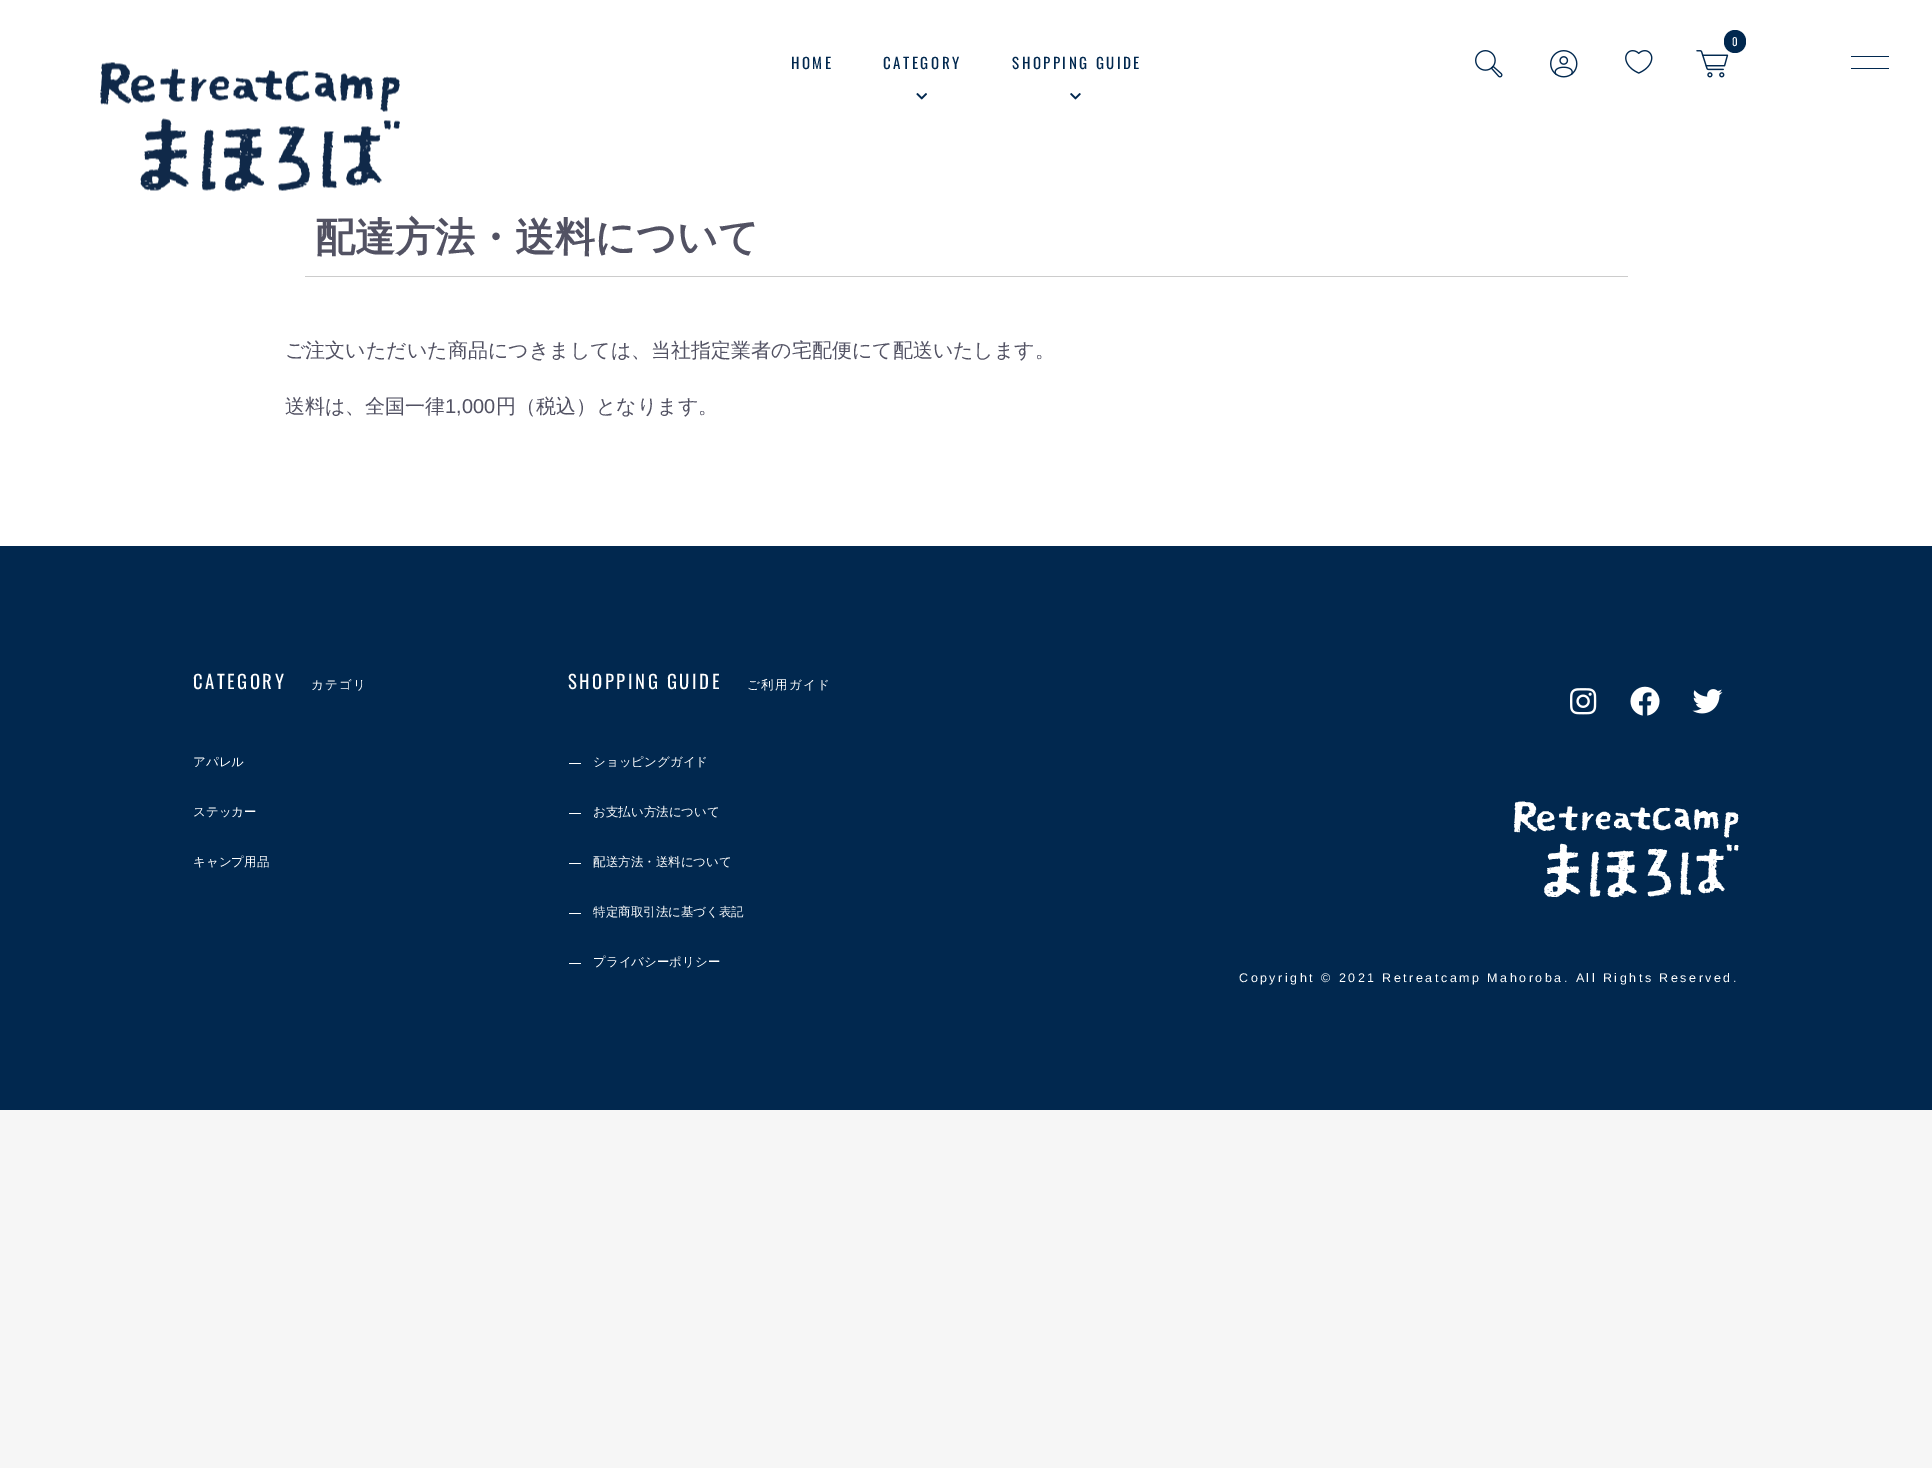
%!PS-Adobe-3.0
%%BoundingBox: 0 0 1932 1468
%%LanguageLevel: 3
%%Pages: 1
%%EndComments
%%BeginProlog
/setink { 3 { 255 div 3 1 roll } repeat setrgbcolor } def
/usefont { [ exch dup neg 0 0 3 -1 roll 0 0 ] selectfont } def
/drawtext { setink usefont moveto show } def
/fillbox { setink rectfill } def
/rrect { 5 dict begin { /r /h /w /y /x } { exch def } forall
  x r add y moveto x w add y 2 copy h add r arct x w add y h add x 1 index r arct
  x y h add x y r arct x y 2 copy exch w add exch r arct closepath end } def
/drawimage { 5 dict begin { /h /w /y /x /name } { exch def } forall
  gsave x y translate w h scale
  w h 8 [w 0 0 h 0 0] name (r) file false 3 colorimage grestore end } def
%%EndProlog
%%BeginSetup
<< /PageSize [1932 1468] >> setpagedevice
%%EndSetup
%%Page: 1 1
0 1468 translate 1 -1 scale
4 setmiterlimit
0 0 1932 1468 246 246 246 fillbox
0 0 1932 546 255 255 255 fillbox
(assets/img1.rgb) 1696 50 33 28 drawimage
1 40 79 setink
1724 30 22 23 11 rrect fill
/Oswald-Regular 11 usefont
255 255 255 setink
1732 46 moveto 1 0 (0) ashow
(assets/img2.rgb) 1475 50 28 28 drawimage
(assets/img3.rgb) 1550 50 28 28 drawimage
(assets/img4.rgb) 1625 50 28 24 drawimage
(assets/img5.rgb) 100 62 300 130 drawimage
/Oswald-Regular 15 usefont
1 40 79 setink
791 69 moveto 2.5 0 (HOME) ashow
883 69 moveto 2.5 0 (CATEGORY) ashow
(assets/img6.rgb) 916 93 11 7 drawimage
1012 69 moveto 2.5 0 (SHOPPING GUIDE) ashow
(assets/img7.rgb) 1070 93 11 7 drawimage
305 276 1323 1 204 204 204 fillbox
(配達方法・送料について) 315 251 /WenQuanYiZenHei-Bold 40 82 82 99 drawtext
(ご注文いただいた商品につきましては、当社指定業者の宅配便にて配送いたします。) 285 357 /WenQuanYiZenHei-Medium 20 82 82 99 drawtext
(送料は、全国一律) 285 413 /WenQuanYiZenHei-Medium 20 82 82 99 drawtext
(1,000) 445 413 /LiberationSans-Regular 20 82 82 99 drawtext
(円（税込）となります。) 496 413 /WenQuanYiZenHei-Medium 20 82 82 99 drawtext
1851 56 38 1 1 40 79 fillbox
1851 68 38 1 1 40 79 fillbox
0 546 1932 564 1 40 79 fillbox
/Oswald-Regular 18.75 usefont
255 255 255 setink
193 689 moveto 2.5 0 (CATEGORY) ashow
/WenQuanYiZenHei-Medium 12.5 usefont
311 689 moveto 1.25 0 (カテゴリ) ashow
(アパレル) 193 766 /WenQuanYiZenHei-Medium 12.5 255 255 255 drawtext
(ステッカー) 193 816 /WenQuanYiZenHei-Medium 12.5 255 255 255 drawtext
(キャンプ用品) 193 866 /WenQuanYiZenHei-Medium 12.5 255 255 255 drawtext
/Oswald-Regular 18.75 usefont
568 689 moveto 2.5 0 (SHOPPING GUIDE) ashow
/WenQuanYiZenHei-Medium 12.5 usefont
747 689 moveto 1.25 0 (ご利用ガイド) ashow
569 763 12 1 255 255 255 fillbox
(ショッピングガイド) 593 766 /WenQuanYiZenHei-Medium 12.5 255 255 255 drawtext
569 813 12 1 255 255 255 fillbox
(お支払い方法について) 593 816 /WenQuanYiZenHei-Medium 12.5 255 255 255 drawtext
569 863 12 1 255 255 255 fillbox
(配送方法・送料について) 593 866 /WenQuanYiZenHei-Medium 12.5 255 255 255 drawtext
569 913 12 1 255 255 255 fillbox
(特定商取引法に基づく表記) 593 916 /WenQuanYiZenHei-Medium 12.5 255 255 255 drawtext
569 963 12 1 255 255 255 fillbox
(プライバシーポリシー) 593 966 /WenQuanYiZenHei-Medium 12.5 255 255 255 drawtext
(assets/img8.rgb) 1570 688 27 27 drawimage
(assets/img9.rgb) 1630 686 30 30 drawimage
(assets/img10.rgb) 1692 689 31 25 drawimage
(assets/img11.rgb) 1514 801 225 97 drawimage
/LiberationSans-Regular 12.5 usefont
1239 982 moveto 2.5 0 (Copyright © 2021 Retreatcamp Mahoroba. All Rights Reserved.) ashow
showpage
%%EOF
